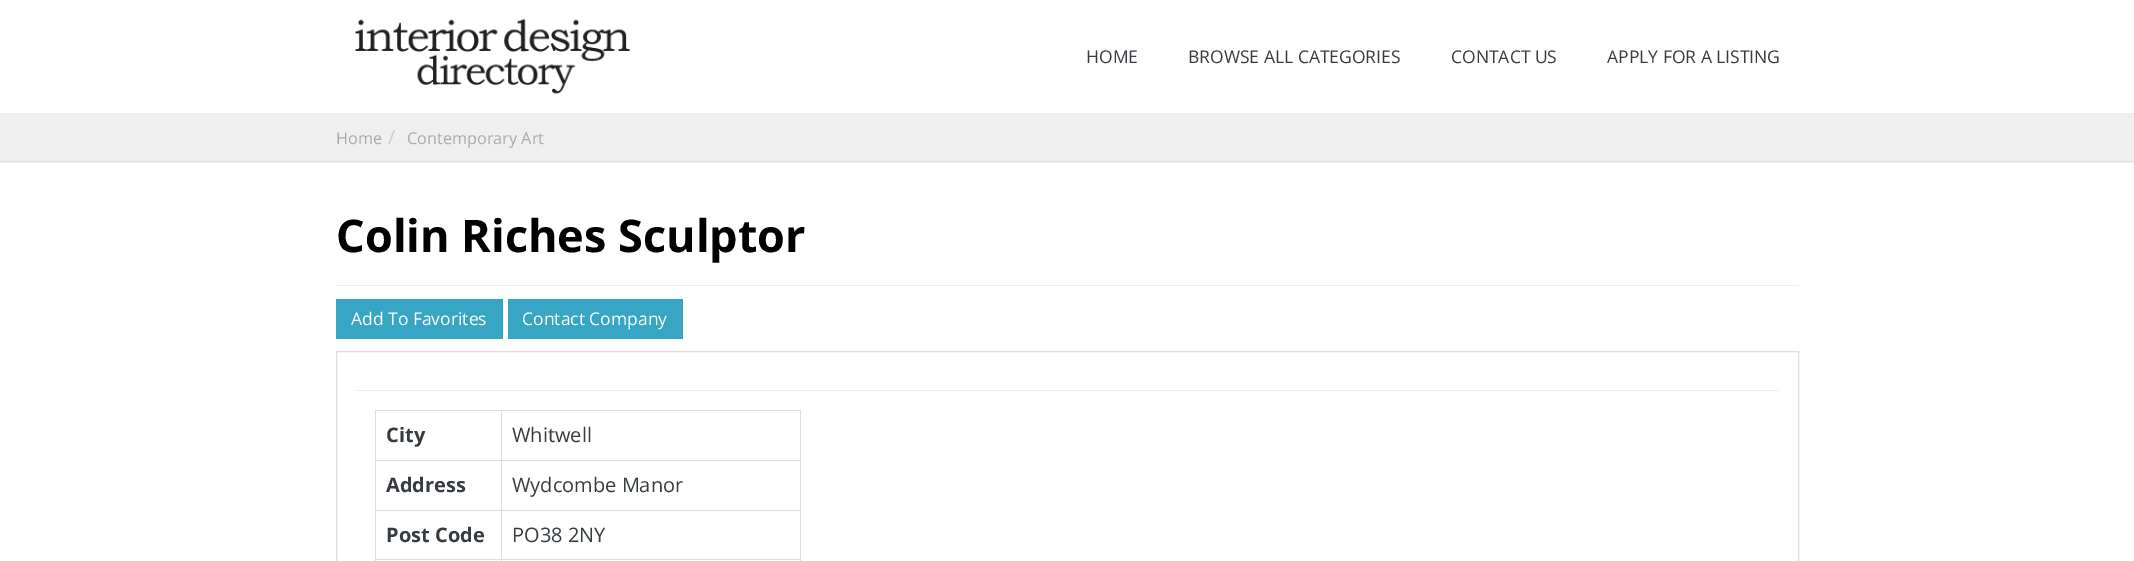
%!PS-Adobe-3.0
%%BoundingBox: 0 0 2134 561
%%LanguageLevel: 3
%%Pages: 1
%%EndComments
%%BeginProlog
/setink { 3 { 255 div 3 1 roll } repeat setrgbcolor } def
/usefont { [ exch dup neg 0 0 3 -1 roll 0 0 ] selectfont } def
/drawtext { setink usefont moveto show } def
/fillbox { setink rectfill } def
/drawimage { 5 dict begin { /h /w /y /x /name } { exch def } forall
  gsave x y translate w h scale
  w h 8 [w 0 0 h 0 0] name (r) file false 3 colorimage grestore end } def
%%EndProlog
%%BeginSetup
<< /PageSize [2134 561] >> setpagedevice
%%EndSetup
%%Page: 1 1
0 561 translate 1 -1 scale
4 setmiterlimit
0 0 2134 561 255 255 255 fillbox
(assets/img1.rgb) 355 18 275 76 drawimage
(HOME) 1086 63 /OpenSans-Regular 17.5 54 59 64 drawtext
(BROWSE ALL CATEGORIES) 1188 63 /OpenSans-Regular 17.5 54 59 64 drawtext
(CONTACT US) 1451 63 /OpenSans-Regular 17.5 54 59 64 drawtext
(APPLY FOR A LISTING) 1607 63 /OpenSans-Regular 17.5 54 59 64 drawtext
0 113 2134 50 239 239 239 fillbox
0 161 2134 1 221 221 221 fillbox
(Home) 336 144 /OpenSans-Regular 16.25 170 170 170 drawtext
(/) 388 144 /OpenSans-Regular 20 204 204 204 drawtext
(Contemporary Art) 407 144 /OpenSans-Regular 16.25 170 170 170 drawtext
(Colin Riches Sculptor) 336 252 /OpenSans-Bold 45 0 0 0 drawtext
336 285 1463 1 239 239 239 fillbox
336 299 167 40 55 166 197 fillbox
(Add To Favorites) 351 325 /OpenSans-Regular 17.5 255 255 255 drawtext
508 299 175 40 55 166 197 fillbox
(Contact Company) 522 325 /OpenSans-Regular 17.5 255 255 255 drawtext
221 221 221 setink
336.5 351.5 1462 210 rectstroke
356 390 1423 1 238 238 238 fillbox
375 410 426 1 221 221 221 fillbox
800 410 1 151 221 221 221 fillbox
375 410 1 151 221 221 221 fillbox
(City) 386 442 /OpenSans-Bold 20 54 59 64 drawtext
501 460 300 1 221 221 221 fillbox
501 510 300 1 221 221 221 fillbox
501 559 300 1 221 221 221 fillbox
501 559 1 2 221 221 221 fillbox
375 559 128 1 221 221 221 fillbox
501 510 1 50 221 221 221 fillbox
375 510 128 1 221 221 221 fillbox
501 460 1 51 221 221 221 fillbox
375 460 128 1 221 221 221 fillbox
501 410 1 51 221 221 221 fillbox
(Whitwell) 512 442 /OpenSans-Regular 20 54 59 64 drawtext
(Address) 386 492 /OpenSans-Bold 20 54 59 64 drawtext
(Wydcombe Manor) 512 492 /OpenSans-Regular 20 54 59 64 drawtext
(Post Code) 386 542 /OpenSans-Bold 20 54 59 64 drawtext
(PO38 2NY) 512 542 /OpenSans-Regular 20 54 59 64 drawtext
showpage
%%EOF
